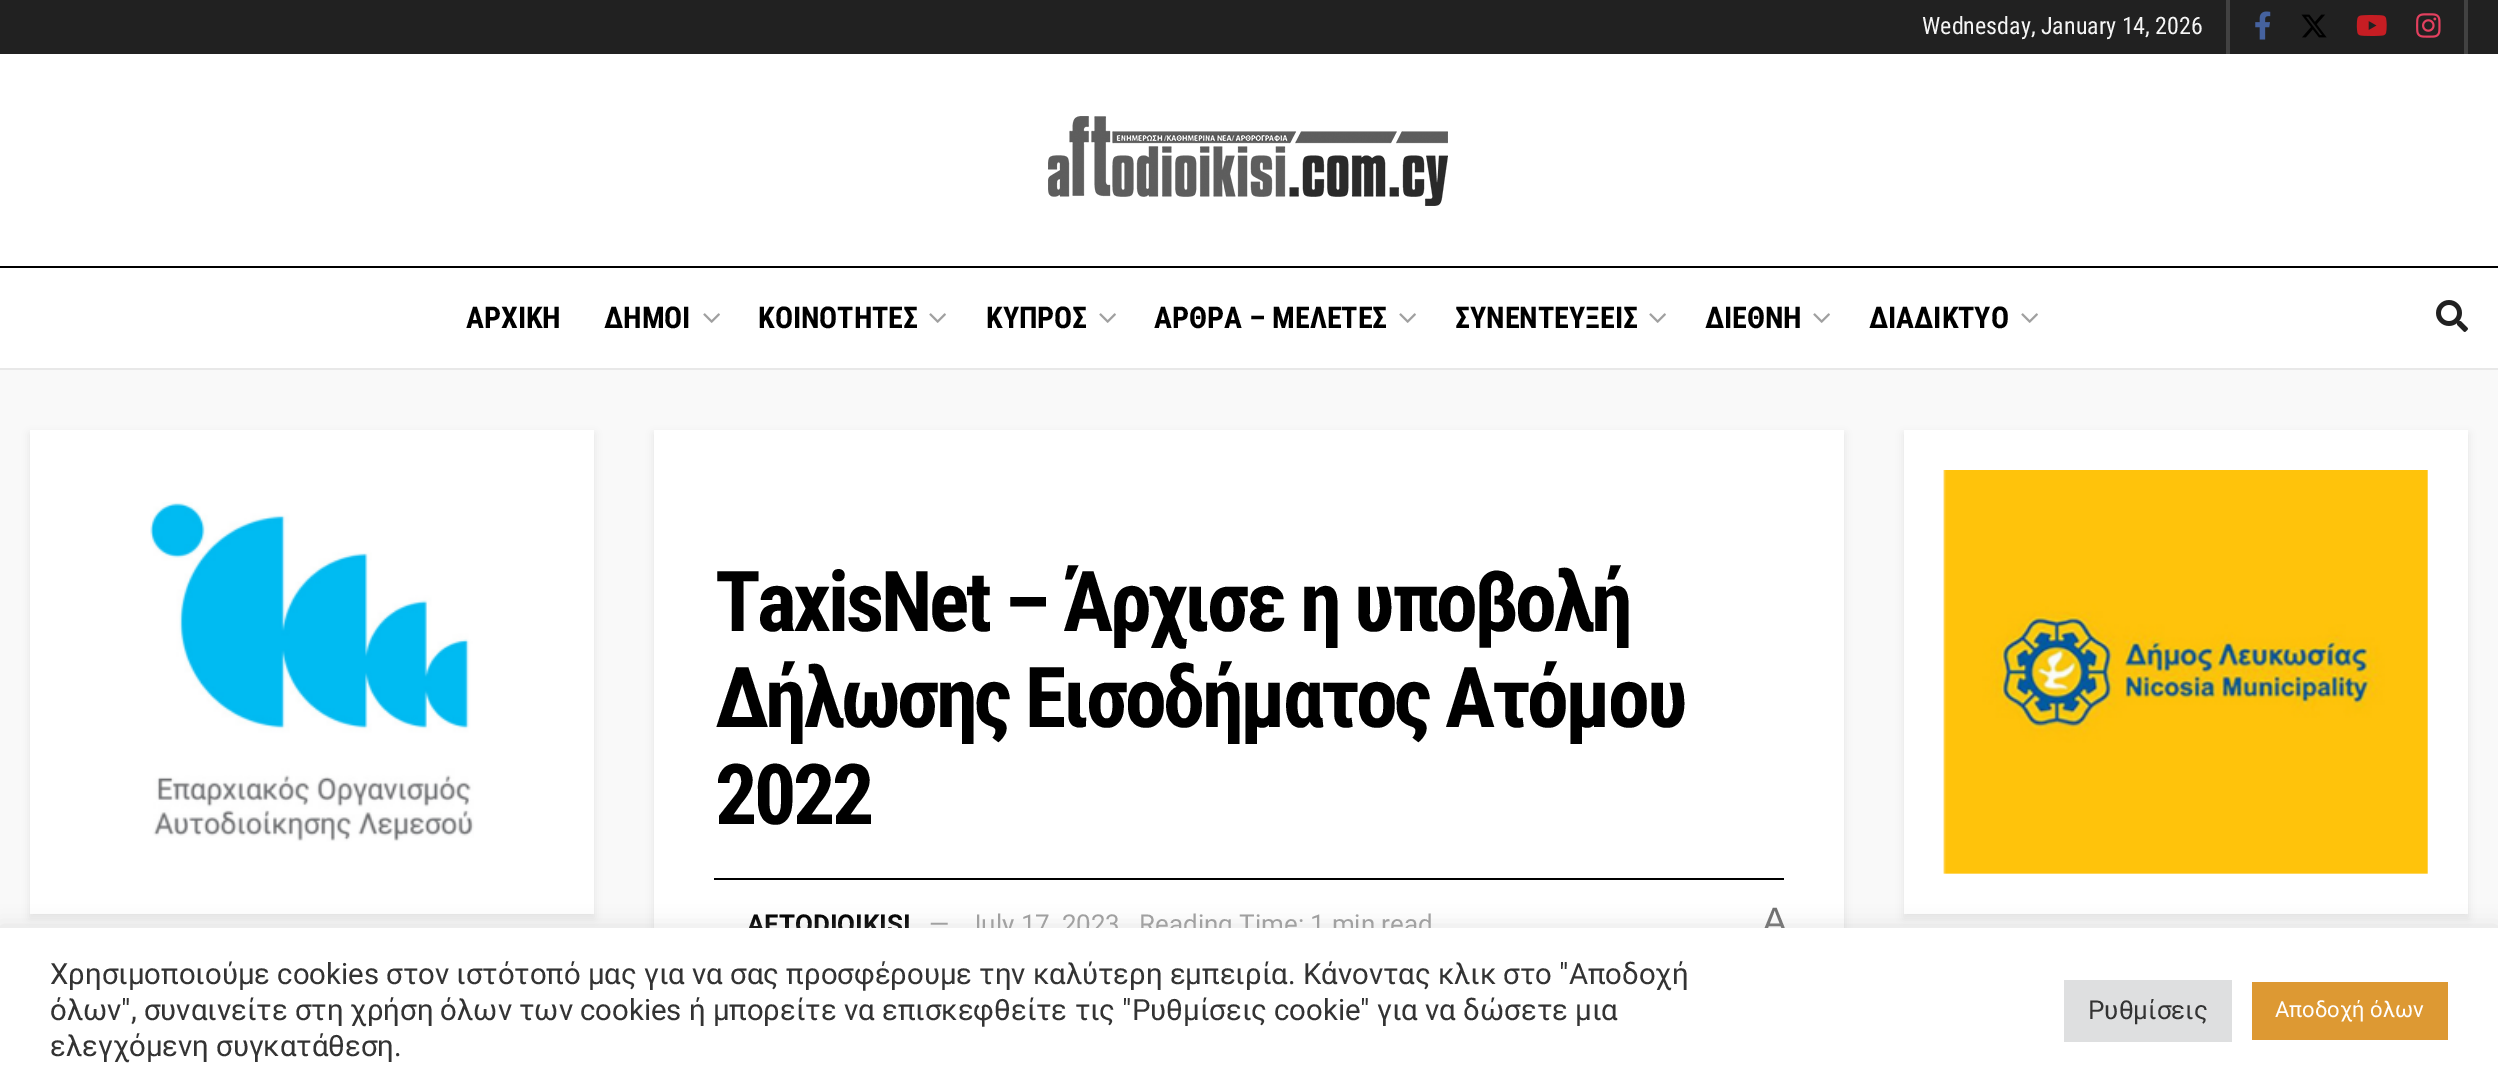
%!PS-Adobe-3.0
%%BoundingBox: 0 0 2498 1091
%%LanguageLevel: 3
%%Pages: 1
%%EndComments
%%BeginProlog
/setink { 3 { 255 div 3 1 roll } repeat setrgbcolor } def
/usefont { [ exch dup neg 0 0 3 -1 roll 0 0 ] selectfont } def
/drawtext { setink usefont moveto show } def
/fillbox { setink rectfill } def
/setalpha { dup .setfillconstantalpha .setstrokeconstantalpha } def
/rrect { 5 dict begin { /r /h /w /y /x } { exch def } forall
  x r add y moveto x w add y 2 copy h add r arct x w add y h add x 1 index r arct
  x y h add x y r arct x y 2 copy exch w add exch r arct closepath end } def
/softshadow { 12 dict begin { /a /b /q /h /w /y /x } { exch def } forall gsave /was 0 def
  9 -2 -9 { dup b mul 4 div /e exch def 1 sub .425 mul 2.718 exch exp 1 add a .99 .min exch div /now exch def
    1 1 now sub 1 was sub div sub setalpha /was now def
    w h .min e 2 mul add 0 gt { x e sub y e sub w e 2 mul add h e 2 mul add
      q e add b .6 mul add w h .min 2 div e add .min 0 .max rrect fill } if } for grestore end } def
/drawimage { 5 dict begin { /h /w /y /x /name } { exch def } forall
  gsave x y translate w h scale
  w h 8 [w 0 0 h 0 0] name (r) file false 3 colorimage grestore end } def
%%EndProlog
%%BeginSetup
<< /PageSize [2498 1091] /PageUsesTransparency true >> setpagedevice
%%EndSetup
%%Page: 1 1
0 .pushpdf14devicefilter
0 1091 translate 1 -1 scale
4 setmiterlimit
0 0 2498 1091 255 255 255 fillbox
0 0 2498 54 33 33 33 fillbox
2464 0 4 54 66 66 66 fillbox
2226 0 4 54 66 66 66 fillbox
(Wednesday, January 14, 2026) 1922 34 /RobotoCondensed-Regular 24 245 245 245 drawtext
(assets/img1.rgb) 2255 11 16 29 drawimage
(assets/img2.rgb) 2301 14 26 24 drawimage
(assets/img3.rgb) 2356 15 31 21 drawimage
(assets/img4.rgb) 2416 13 25 25 drawimage
(assets/img5.rgb) 1048 116 400 90 drawimage
0 266 2498 2 0 0 0 fillbox
0 368 2498 2 232 232 232 fillbox
(ΑΡΧΙΚΗ) 466 328 /RobotoCondensed-Bold 30 0 0 0 drawtext
(ΔΗΜΟΙ) 604 328 /RobotoCondensed-Bold 30 0 0 0 drawtext
(assets/img6.rgb) 703 313 17 10 drawimage
(ΚΟΙΝΟΤΗΤΕΣ) 758 328 /RobotoCondensed-Bold 30 0 0 0 drawtext
(assets/img6.rgb) 929 313 17 10 drawimage
(ΚΥΠΡΟΣ) 986 328 /RobotoCondensed-Bold 30 0 0 0 drawtext
(assets/img6.rgb) 1099 313 17 10 drawimage
(ΑΡΘΡΑ – ΜΕΛΕΤΕΣ) 1154 328 /RobotoCondensed-Bold 30 0 0 0 drawtext
(assets/img6.rgb) 1399 313 17 10 drawimage
(ΣΥΝΕΝΤΕΥΞΕΙΣ) 1455 328 /RobotoCondensed-Bold 30 0 0 0 drawtext
(assets/img6.rgb) 1649 313 17 10 drawimage
(ΔΙΕΘΝΗ) 1705 328 /RobotoCondensed-Bold 30 0 0 0 drawtext
(assets/img6.rgb) 1813 313 17 10 drawimage
(ΔΙΑΔΙΚΤΥΟ) 1869 328 /RobotoCondensed-Bold 30 0 0 0 drawtext
(assets/img6.rgb) 2021 313 17 10 drawimage
(assets/img7.rgb) 2436 300 32 32 drawimage
0 370 2498 558 249 249 249 fillbox
0 0 0 setink
30 434 564 484 0 4 0.08 softshadow
30 430 564 484 255 255 255 fillbox
(assets/img8.rgb) 150 502 324 340 drawimage
0 0 0 setink
654 434 1190 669 0 4 0.08 softshadow
654 430 1190 498 255 255 255 fillbox
/RobotoCondensed-Bold 84 usefont
0 0 0 setink
715 631 moveto -3.35 0 (TaxisNet – Άρχισε η υποβολή) ashow
715 727 moveto -3.35 0 (Δήλωσης Εισοδήματος Ατόμου) ashow
715 824 moveto -3.35 0 (2022) ashow
714 878 1070 2 0 0 0 fillbox
(AFTODIOIKISI) 747 933 /Roboto-Bold 26 0 0 0 drawtext
(—) 929 933 /Roboto-Regular 26 160 160 160 drawtext
(July 17, 2023) 967 933 /Roboto-Regular 26 160 160 160 drawtext
(Reading Time: 1 min read) 1139 933 /Roboto-Regular 26 160 160 160 drawtext
(A) 1762 934 /LiberationSans-Regular 38 112 112 112 drawtext
0 0 0 setink
1904 434 564 484 0 4 0.08 softshadow
1904 430 564 484 255 255 255 fillbox
(assets/img9.rgb) 1943 470 485 404 drawimage
172 171 171 setink
0 926 2498 164 0 10 0.3 softshadow
0 928 2498 163 255 255 255 fillbox
(Χρησιμοποιούμε cookies στον ιστότοπό μας για να σας προσφέρουμε την καλύτερη εμπειρία. Κάνοντας κλικ στο "Αποδοχή) 50 984 /Roboto-Regular 29.33 51 51 51 drawtext
(όλων", συναινείτε στη χρήση όλων των cookies ή μπορείτε να επισκεφθείτε τις "Ρυθμίσεις cookie" για να δώσετε μια) 50 1020 /Roboto-Regular 29.33 51 51 51 drawtext
(ελεγχόμενη συγκατάθεση.) 50 1056 /Roboto-Regular 29.33 51 51 51 drawtext
2064 980 168 62 222 223 224 fillbox
(Ρυθμίσεις) 2088 1019 /Roboto-Regular 26 51 51 51 drawtext
2252 982 196 58 221 153 51 fillbox
(Αποδοχή όλων) 2275 1017 /Roboto-Regular 22 255 255 255 drawtext
.poppdf14devicefilter showpage
%%EOF
